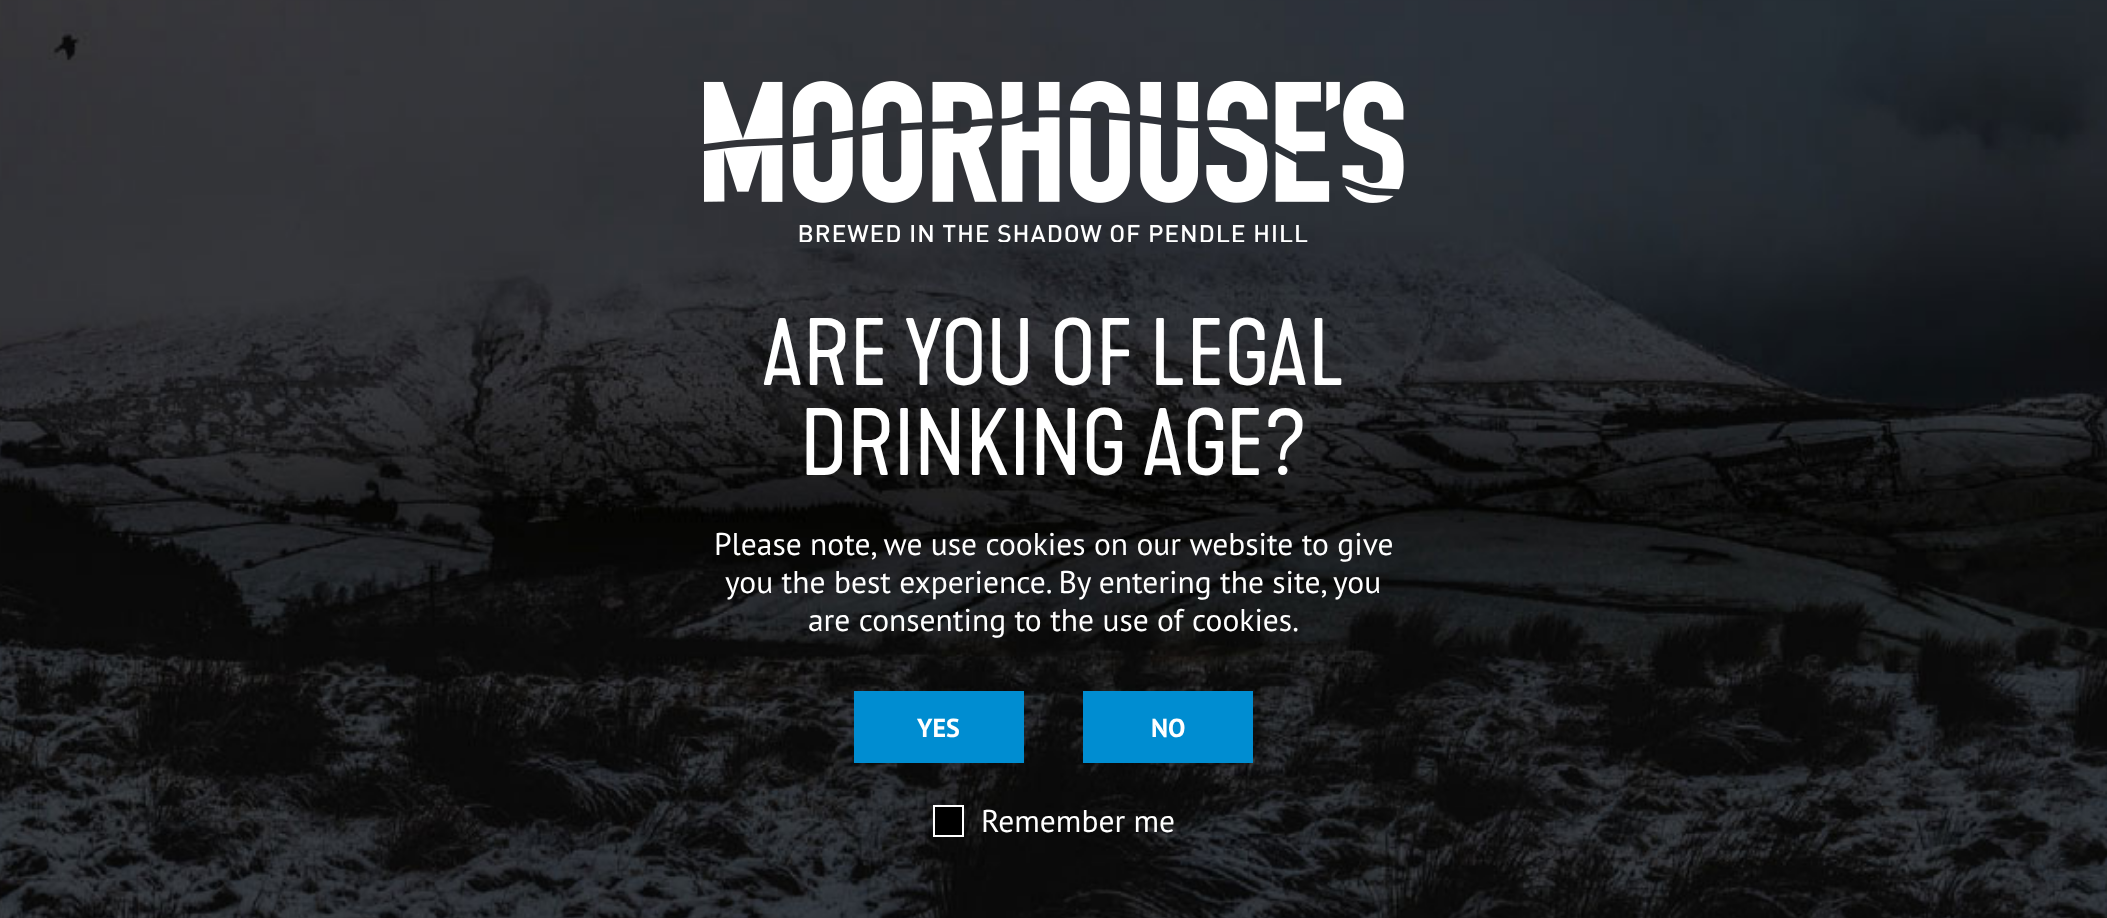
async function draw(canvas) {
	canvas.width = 2107;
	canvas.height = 918;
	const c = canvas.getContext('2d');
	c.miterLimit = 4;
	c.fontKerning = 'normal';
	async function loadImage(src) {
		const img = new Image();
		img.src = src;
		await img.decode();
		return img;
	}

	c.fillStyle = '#fff';
	c.fillRect(0, 0, 2107, 918);
	c.drawImage(await loadImage('img1.png'), 0, 0, 2107, 918);
	c.drawImage(await loadImage('img2.png'), 704, 81, 700, 161);
	c.font = '89.25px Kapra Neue';
	c.fillText('ARE YOU OF LEGAL', 761, 385);
	c.fillText('DRINKING AGE?', 800, 475);
	c.font = '31.5px PT Sans';
	for (const [text, x, y] of [
		['Please note, we use cookies on our website to give', 714, 555],
		['you the best experience. By entering the site, you', 725, 593],
		['are consenting to the use of cookies.', 808, 631],
	]) {
		c.fillText(text, x, y);
	}
	c.fillStyle = '#008dd1';
	c.fillRect(854, 691, 170, 72);
	c.font = 'bold 26px PT Sans';
	c.fillStyle = '#fff';
	c.fillText('YES', 917, 737);
	c.fillStyle = '#008dd1';
	c.fillRect(1083, 691, 170, 72);
	c.fillStyle = '#fff';
	c.fillText('NO', 1151, 737);
	c.fillStyle = '#000';
	c.beginPath();
	c.rect(934, 806, 29, 30);
	c.fill();
	c.strokeStyle = '#fff';
	c.lineWidth = 2;
	c.stroke();
	c.font = '31.5px PT Sans';
	c.fillStyle = '#fff';
	c.fillText('Remember me', 981, 832);
}

draw(document.querySelector('canvas'));
